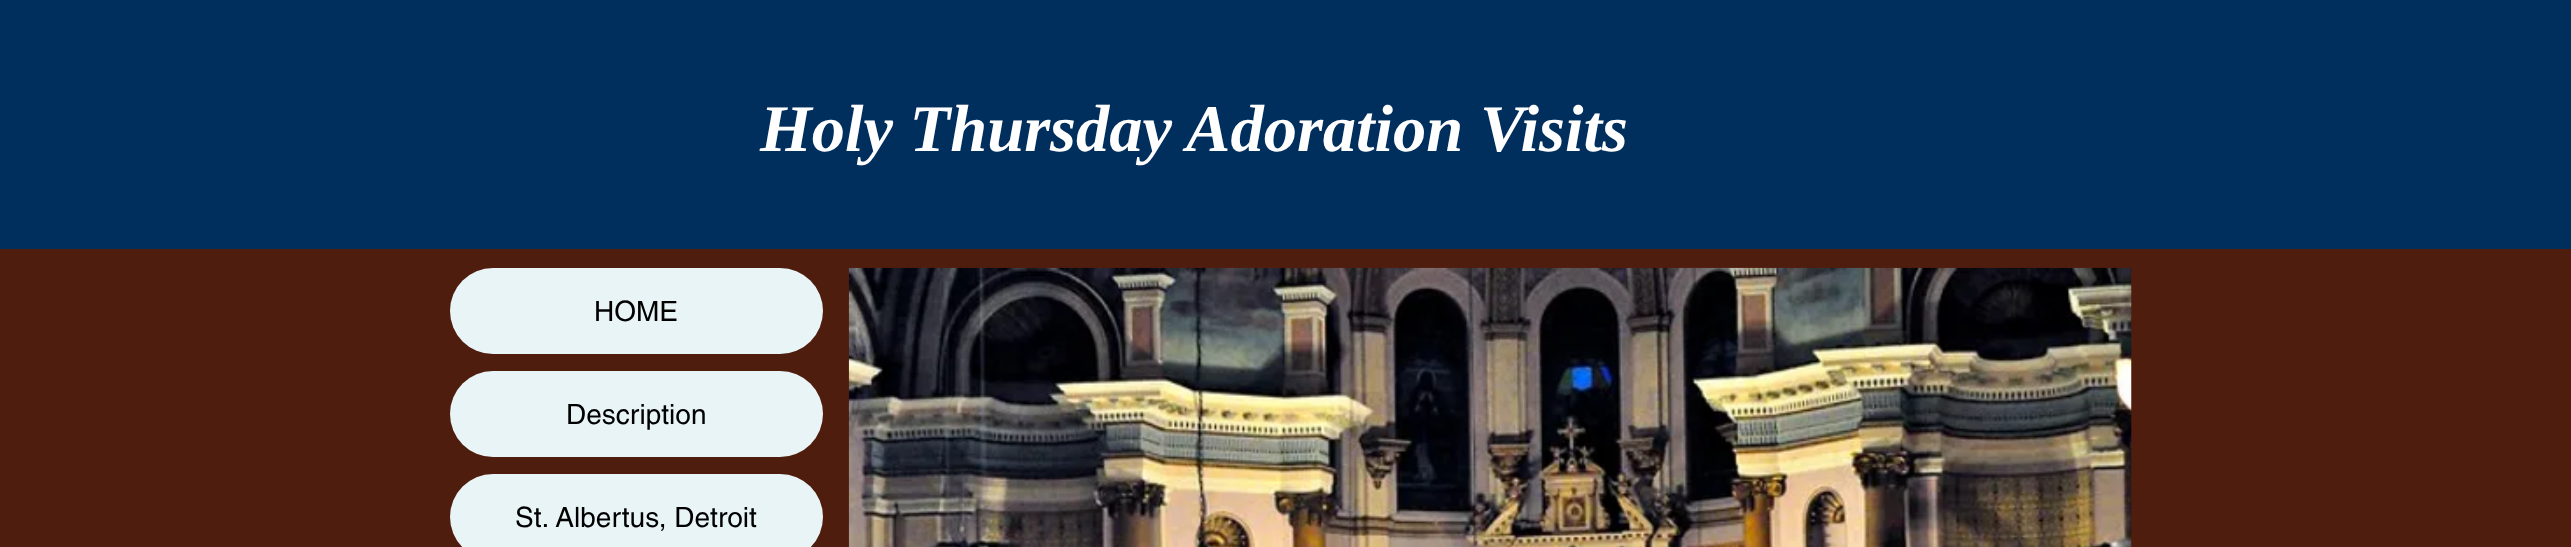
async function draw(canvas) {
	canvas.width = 2571;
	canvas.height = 547;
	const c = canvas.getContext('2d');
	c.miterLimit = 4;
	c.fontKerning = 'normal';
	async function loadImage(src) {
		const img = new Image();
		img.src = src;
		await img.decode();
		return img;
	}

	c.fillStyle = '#4f1d0e';
	c.fillRect(0, 0, 2571, 547);
	c.fillStyle = '#002e5d';
	c.fillRect(0, 0, 2571, 249);
	c.font = 'italic bold 66.5px Liberation Serif';
	c.fillStyle = '#fff';
	c.fillText('Holy Thursday Adoration Visits', 760, 151);
	c.fillStyle = '#e9f4f6';
	c.beginPath();
	c.roundRect(450, 268, 373, 86, 43);
	c.fill();
	c.font = '28px helvetica';
	c.fillStyle = '#000';
	c.fillText('HOME', 594, 321);
	c.fillStyle = '#e9f4f6';
	c.beginPath();
	c.roundRect(450, 371, 373, 86, 43);
	c.fill();
	c.fillStyle = '#000';
	c.fillText('Description', 566, 424);
	c.fillStyle = '#e9f4f6';
	c.beginPath();
	c.roundRect(450, 474, 373, 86, 43);
	c.fill();
	c.fillStyle = '#000';
	c.fillText('St. Albertus, Detroit', 515, 527);
	c.drawImage(await loadImage('img1.png'), 848, 267, 1284, 280);
}

draw(document.querySelector('canvas'));
